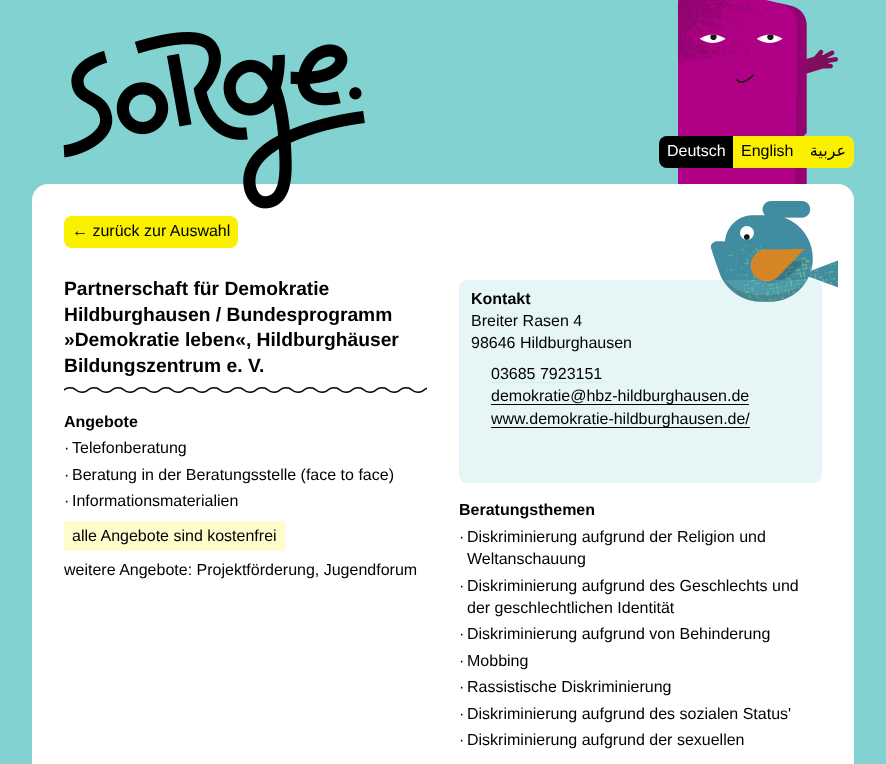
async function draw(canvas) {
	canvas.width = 886;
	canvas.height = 764;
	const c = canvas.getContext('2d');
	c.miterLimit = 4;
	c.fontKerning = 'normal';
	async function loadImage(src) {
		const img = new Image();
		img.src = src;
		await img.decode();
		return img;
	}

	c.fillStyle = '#82d2d2';
	c.fillRect(0, 0, 886, 764);
	c.fillStyle = '#fff';
	c.beginPath();
	c.roundRect(32, 184, 822, 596, 16);
	c.fill();
	c.drawImage(await loadImage('img1.png'), 63, 32, 302, 177);
	c.drawImage(await loadImage('img2.png'), 677, 0, 161, 184);
	c.fillStyle = '#000';
	c.beginPath();
	c.roundRect(659, 136, 74, 32, [8, 0, 0, 8]);
	c.fill();
	c.font = '16px Liberation Sans';
	c.fillStyle = '#fff';
	c.fillText('Deutsch', 667, 156);
	c.fillStyle = '#faf000';
	c.fillRect(733, 136, 69, 32);
	c.fillStyle = '#000';
	c.fillText('English', 741, 156);
	c.fillStyle = '#faf000';
	c.beginPath();
	c.roundRect(802, 136, 52, 32, [0, 8, 8, 0]);
	c.fill();
	c.direction = 'rtl';
	c.font = '16px DejaVu Sans';
	c.fillStyle = '#000';
	c.fillText('عربية', 846, 156);
	c.fillStyle = '#faf000';
	c.beginPath();
	c.roundRect(64, 216, 174, 32, 8);
	c.fill();
	c.direction = 'ltr';
	c.font = '16px Liberation Sans';
	c.fillStyle = '#000';
	c.fillText('← zurück zur Auswahl', 72, 236);
	c.drawImage(await loadImage('img3.png'), 710, 201, 128, 101);
	c.font = 'bold 19.25px Liberation Sans';
	for (const [text, x, y] of [
		['Partnerschaft für Demokratie', 64, 295],
		['Hildburghausen / Bundesprogramm', 64, 321],
		['»Demokratie leben«, Hildburghäuser', 64, 346],
		['Bildungszentrum e. V.', 64, 372],
	]) {
		c.fillText(text, x, y);
	}
	c.drawImage(await loadImage('img4.png'), 64, 387, 363, 6);
	c.font = 'bold 16px Liberation Sans';
	c.fillText('Angebote', 64, 427);
	c.font = '16px Liberation Sans';
	for (const [text, x, y] of [
		['·', 64, 453],
		['Telefonberatung', 72, 453],
		['·', 64, 480],
		['Beratung in der Beratungsstelle (face to face)', 72, 480],
		['·', 64, 506],
		['Informationsmaterialien', 72, 506],
	]) {
		c.fillText(text, x, y);
	}
	c.fillStyle = '#fefccc';
	c.fillRect(64, 521, 221, 30);
	c.fillStyle = '#000';
	c.fillText('alle Angebote sind kostenfrei', 72, 541);
	c.fillText('weitere Angebote: Projektförderung, Jugendforum', 64, 575);
	c.fillStyle = '#82d2d233';
	c.beginPath();
	c.roundRect(459, 280, 363, 203, 8);
	c.fill();
	c.font = 'bold 16px Liberation Sans';
	c.fillStyle = '#000';
	c.fillText('Kontakt', 471, 304);
	c.font = '16px Liberation Sans';
	for (const [text, x, y] of [
		['Breiter Rasen 4', 471, 326],
		['98646 Hildburghausen', 471, 348],
		['03685 7923151', 491, 379],
	]) {
		c.fillText(text, x, y);
	}
	c.fillStyle = '#d2efef';
	c.fillRect(491, 382, 111, 1);
	c.fillStyle = '#000';
	c.fillRect(491, 404, 258, 1);
	c.fillText('demokratie@hbz-hildburghausen.de', 491, 401);
	c.fillRect(491, 427, 259, 1);
	c.fillText('www.demokratie-hildburghausen.de/', 491, 424);
	c.font = 'bold 16px Liberation Sans';
	c.fillText('Beratungsthemen', 459, 515);
	c.font = '16px Liberation Sans';
	for (const [text, x, y] of [
		['·', 459, 542],
		['Diskriminierung aufgrund der Religion und', 467, 542],
		['Weltanschauung', 467, 564],
		['·', 459, 591],
		['Diskriminierung aufgrund des Geschlechts und', 467, 591],
		['der geschlechtlichen Identität', 467, 613],
		['·', 459, 639],
		['Diskriminierung aufgrund von Behinderung', 467, 639],
		['·', 459, 666],
		['Mobbing', 467, 666],
		['·', 459, 692],
		['Rassistische Diskriminierung', 467, 692],
		['·', 459, 719],
		['Diskriminierung aufgrund des sozialen Status\'', 467, 719],
		['·', 459, 745],
		['Diskriminierung aufgrund der sexuellen', 467, 745],
	]) {
		c.fillText(text, x, y);
	}
}

draw(document.querySelector('canvas'));
